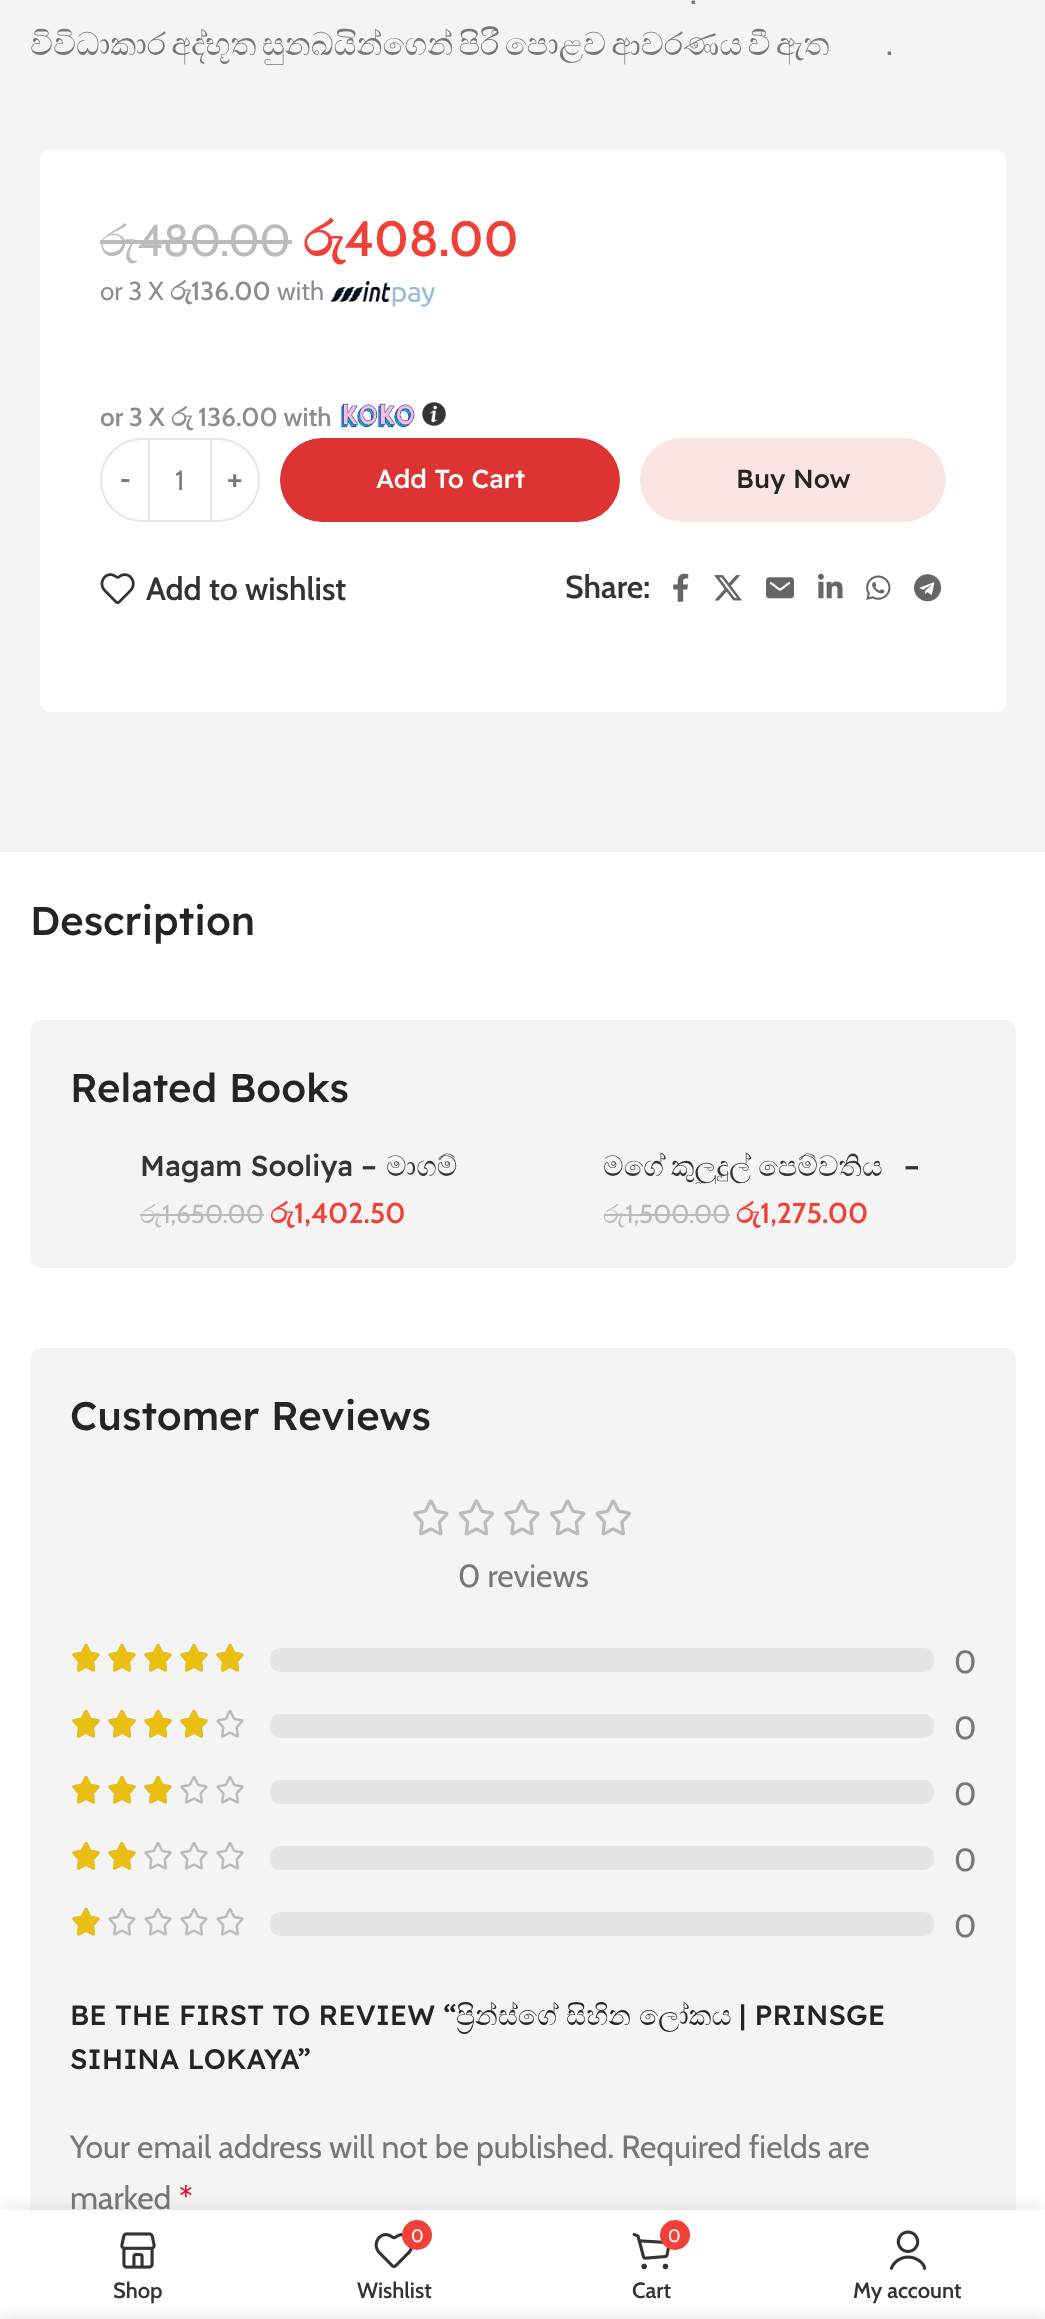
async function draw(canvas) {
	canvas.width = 1045;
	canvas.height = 2319;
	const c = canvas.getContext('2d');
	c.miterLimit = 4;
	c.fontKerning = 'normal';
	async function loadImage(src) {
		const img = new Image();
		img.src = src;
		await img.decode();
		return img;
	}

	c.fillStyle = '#fff';
	c.fillRect(0, 0, 1045, 2319);
	c.fillStyle = '#f4f4f4';
	c.fillRect(0, 0, 1045, 852);
	c.font = '32px Cabin';
	c.fillStyle = '#777';
	c.fillText('.', 690, 4);
	c.wordSpacing = '-2.75px';
	c.font = '32px FreeSerif';
	c.fillText('විවිධාකාර අද්භූත සුනඛයින්ගෙන් පිරී පොළව ආවරණය වී ඇත', 30, 55);
	c.wordSpacing = '0px';
	c.font = '32px Cabin';
	c.fillText('.', 886, 55);
	c.fillStyle = '#fff';
	c.beginPath();
	c.roundRect(40, 150, 966, 562, 10);
	c.fill();
	c.font = '44.5px FreeSerif';
	c.fillStyle = '#bbb';
	c.fillText('රු', 100, 256);
	c.fillRect(100, 240, 38, 4);
	c.fillRect(138, 240, 154, 4);
	c.font = '44.5px Cabin';
	c.fillText('480.00', 137, 256);
	c.font = 'bold 49.5px FreeSerif';
	c.fillStyle = '#ef4137';
	c.fillText('රු', 303, 256);
	c.font = '600 49.5px Cabin';
	c.fillText('408.00', 344, 256);
	c.font = '26px Cabin';
	c.fillStyle = '#8e8e8e';
	c.fillText('or 3 X', 100, 300);
	c.font = 'bold 26px FreeSerif';
	c.fillText('රු', 170, 300);
	c.font = '600 26px Cabin';
	c.fillText('136.00', 191, 300);
	c.font = '26px Cabin';
	c.fillText('with', 277, 300);
	c.drawImage(await loadImage('img1.png'), 330, 280, 106, 28);
	c.font = '600 26px Cabin';
	c.fillText('or 3 X', 100, 426);
	c.font = 'bold 26px FreeSerif';
	c.fillText('රු', 171, 426);
	c.font = '600 26px Cabin';
	c.fillText('136.00 with', 198, 426);
	c.drawImage(await loadImage('img2.png'), 341, 403, 74, 25);
	c.drawImage(await loadImage('img3.png'), 422, 402, 24, 24);
	c.beginPath();
	c.roundRect(101, 439, 48, 82, [41, 0, 0, 41]);
	c.strokeStyle = '#e6e6e6';
	c.lineWidth = 2;
	c.stroke();
	c.font = '500 26px Readex Pro';
	c.fillStyle = '#777';
	c.fillText('-', 120, 488);
	c.fillStyle = '#e6e6e6';
	c.fillRect(150, 438, 60, 2);
	c.fillRect(150, 520, 60, 2);
	c.font = '28px Cabin';
	c.fillStyle = '#777';
	c.fillText('1', 175, 490);
	c.beginPath();
	c.roundRect(211, 439, 48, 82, [0, 41, 41, 0]);
	c.stroke();
	c.font = '500 26px Readex Pro';
	c.fillText('+', 227, 488);
	c.fillStyle = '#d33';
	c.beginPath();
	c.roundRect(280, 438, 340, 84, 42);
	c.fill();
	c.fillStyle = '#fff';
	c.fillText('Add To Cart', 376, 488);
	c.fillStyle = '#fbe4e4';
	c.beginPath();
	c.roundRect(640, 438, 306, 84, 42);
	c.fill();
	c.fillStyle = '#242424';
	c.fillText('Buy Now', 736, 488);
	c.drawImage(await loadImage('img4.png'), 100, 573, 35, 31);
	c.font = '600 32px Cabin';
	c.fillStyle = '#333';
	c.fillText('Add to wishlist', 146, 600);
	c.fillText('Share:', 565, 598);
	c.drawImage(await loadImage('img5.png'), 673, 573, 16, 29);
	c.drawImage(await loadImage('img6.png'), 714, 575, 28, 26);
	c.drawImage(await loadImage('img7.png'), 766, 577, 28, 22);
	c.drawImage(await loadImage('img8.png'), 818, 573, 25, 26);
	c.drawImage(await loadImage('img9.png'), 866, 575, 25, 25);
	c.drawImage(await loadImage('img10.png'), 914, 574, 28, 28);
	c.font = '500 40px Readex Pro';
	c.fillStyle = '#242424';
	c.fillText('Description', 30, 935);
	c.fillStyle = '#f4f4f4';
	c.beginPath();
	c.roundRect(30, 1020, 986, 248, 10);
	c.fill();
	c.fillStyle = '#242424';
	c.fillText('Related Books', 70, 1102);
	c.font = '500 28.75px Readex Pro';
	c.fillStyle = '#333';
	c.fillText('Magam Sooliya –', 140, 1176);
	c.font = '28.75px FreeSerif';
	c.fillText('මාගම්', 386, 1176);
	c.font = '26px FreeSerif';
	c.fillStyle = '#bbb';
	c.fillText('රු', 140, 1223);
	c.font = '26px Cabin';
	c.fillText('1,650.00', 162, 1223);
	c.fillRect(140, 1214, 22, 2);
	c.fillRect(162, 1214, 102, 2);
	c.font = 'bold 28.75px FreeSerif';
	c.fillStyle = '#ef4137';
	c.fillText('රු', 270, 1223);
	c.font = '600 28.75px Cabin';
	c.fillText('1,402.50', 294, 1223);
	c.save();
	c.beginPath();
	c.rect(604, 1150, 372, 34);
	c.clip();
	c.font = '28.75px FreeSerif';
	c.fillStyle = '#333';
	c.fillText('මගේ කුලුදුල් පෙම්වතිය', 603, 1176);
	c.restore();
	c.font = '500 28.75px Readex Pro';
	c.fillStyle = '#333';
	c.fillText('–', 904, 1176);
	c.font = '26px FreeSerif';
	c.fillStyle = '#bbb';
	c.fillText('රු', 603, 1223);
	c.fillRect(604, 1214, 20, 2);
	c.font = '26px Cabin';
	c.fillText('1,500.00', 625, 1223);
	c.fillRect(624, 1214, 106, 2);
	c.font = 'bold 28.75px FreeSerif';
	c.fillStyle = '#ef4137';
	c.fillText('රු', 736, 1223);
	c.font = '600 28.75px Cabin';
	c.fillText('1,275.00', 760, 1223);
	c.fillStyle = '#f4f4f4';
	c.beginPath();
	c.roundRect(30, 1348, 986, 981, 10);
	c.fill();
	c.font = '500 40px Readex Pro';
	c.fillStyle = '#242424';
	c.fillText('Customer Reviews', 70, 1430);
	c.drawImage(await loadImage('img11.png'), 413, 1499, 218, 37);
	c.font = '32px Cabin';
	c.fillStyle = '#777';
	c.fillText('0 reviews', 458, 1587);
	c.drawImage(await loadImage('img13.png'), 72, 1644, 172, 28);
	c.drawImage(await loadImage('img12.png'), 72, 1643, 172, 29);
	c.fillStyle = '#e5e5e5';
	c.beginPath();
	c.roundRect(270, 1648, 664, 24, 10);
	c.fill();
	c.fillStyle = '#777';
	c.fillText('0', 954, 1673);
	c.drawImage(await loadImage('img13.png'), 72, 1710, 172, 28);
	c.drawImage(await loadImage('img14.png'), 72, 1709, 136, 29);
	c.fillStyle = '#e5e5e5';
	c.beginPath();
	c.roundRect(270, 1714, 664, 24, 10);
	c.fill();
	c.fillStyle = '#777';
	c.fillText('0', 954, 1739);
	c.drawImage(await loadImage('img13.png'), 72, 1776, 172, 28);
	c.drawImage(await loadImage('img15.png'), 72, 1775, 100, 29);
	c.fillStyle = '#e5e5e5';
	c.beginPath();
	c.roundRect(270, 1780, 664, 24, 10);
	c.fill();
	c.fillStyle = '#777';
	c.fillText('0', 954, 1805);
	c.drawImage(await loadImage('img13.png'), 72, 1842, 172, 28);
	c.drawImage(await loadImage('img16.png'), 72, 1841, 64, 29);
	c.fillStyle = '#e5e5e5';
	c.beginPath();
	c.roundRect(270, 1846, 664, 24, 10);
	c.fill();
	c.fillStyle = '#777';
	c.fillText('0', 954, 1871);
	c.drawImage(await loadImage('img13.png'), 72, 1908, 172, 28);
	c.drawImage(await loadImage('img17.png'), 72, 1907, 28, 29);
	c.fillStyle = '#e5e5e5';
	c.beginPath();
	c.roundRect(270, 1912, 664, 24, 10);
	c.fill();
	c.fillStyle = '#777';
	c.fillText('0', 954, 1937);
	c.font = '500 28px Readex Pro';
	c.fillStyle = '#242424';
	c.fillText('BE THE FIRST TO REVIEW “', 70, 2025);
	c.font = '28px FreeSerif';
	for (const [text, x, y] of [
		['ප්‍රින්ස්ගේ', 456, 2025],
		['සිහින', 566, 2025],
		['ලෝකය', 639, 2025],
	]) {
		c.fillText(text, x, y);
	}
	c.font = '500 28px Readex Pro';
	c.fillText('| PRINSGE', 739, 2025);
	c.fillText('SIHINA LOKAYA”', 70, 2069);
	c.font = '32px Cabin';
	c.fillStyle = '#777';
	c.fillText('Your email address will not be published. Required fields are', 70, 2158);
	c.fillText('marked', 70, 2209);
	c.fillStyle = '#e01020';
	c.fillText('*', 179, 2209);
	c.fillStyle = '#0000001f';
	c.filter = 'blur(9px)';
	c.beginPath();
	c.rect(0, 2210, 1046, 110);
	c.fill();
	c.filter = 'none';
	c.fillStyle = '#fff';
	c.fillRect(0, 2210, 1045, 109);
	c.drawImage(await loadImage('img18.png'), 120, 2232, 36, 37);
	c.font = '600 22px Cabin';
	c.fillStyle = '#333';
	c.fillText('Shop', 113, 2298);
	c.drawImage(await loadImage('img19.png'), 374, 2233, 39, 35);
	c.fillStyle = '#ef4137';
	c.beginPath();
	c.arc(417, 2235, 15, 0, 2 * Math.PI);
	c.fill();
	c.font = '18px Cabin';
	c.fillStyle = '#fff';
	c.fillText('0', 411, 2242);
	c.font = '600 22px Cabin';
	c.fillStyle = '#333';
	c.fillText('Wishlist', 357, 2298);
	c.drawImage(await loadImage('img20.png'), 632, 2233, 38, 37);
	c.fillStyle = '#ef4137';
	c.beginPath();
	c.arc(675, 2235, 15, 0, 2 * Math.PI);
	c.fill();
	c.font = '18px Cabin';
	c.fillStyle = '#fff';
	c.fillText('0', 668, 2242);
	c.font = '600 22px Cabin';
	c.fillStyle = '#333';
	c.fillText('Cart', 632, 2298);
	c.drawImage(await loadImage('img21.png'), 889, 2230, 38, 40);
	c.fillText('My account', 853, 2298);
	c.fillStyle = '#00000024';
	c.filter = 'blur(9px)';
	c.beginPath();
	c.rect(0, 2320, 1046, 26);
	c.fill();
	c.filter = 'none';
}

draw(document.querySelector('canvas'));
